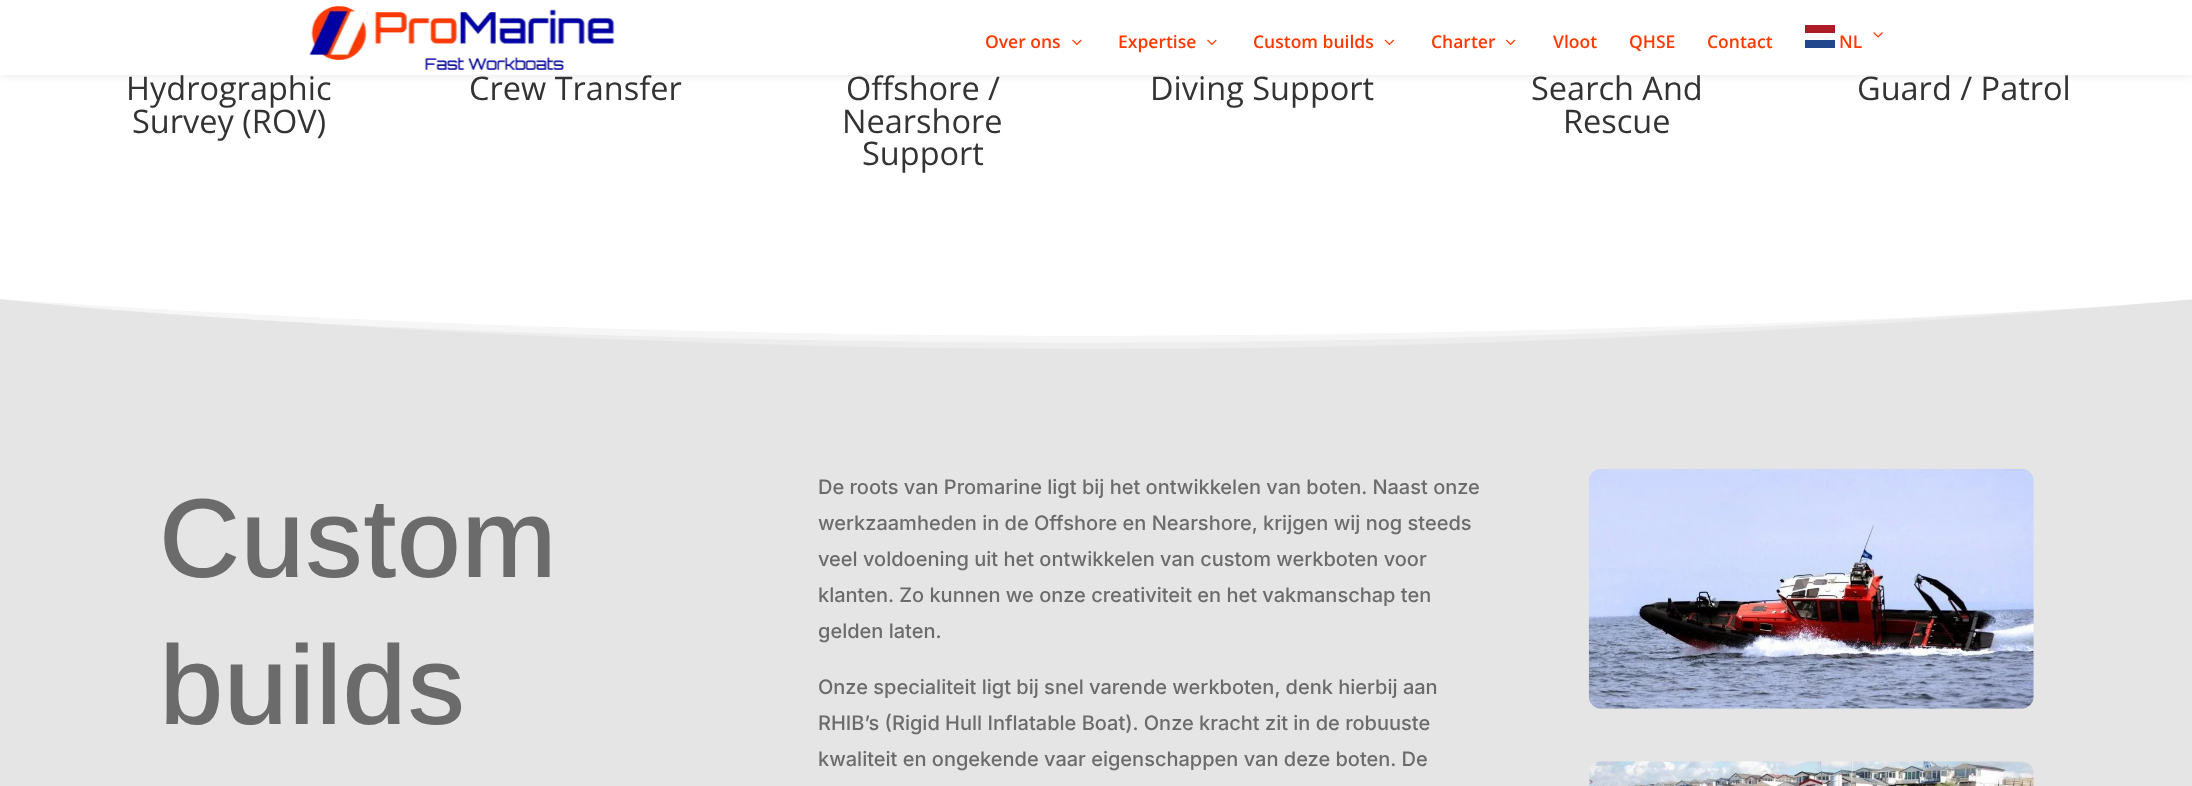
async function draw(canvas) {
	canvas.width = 2192;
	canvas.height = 786;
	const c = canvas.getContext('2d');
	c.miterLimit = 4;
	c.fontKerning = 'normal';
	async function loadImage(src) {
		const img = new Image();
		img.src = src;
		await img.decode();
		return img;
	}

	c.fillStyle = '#fff';
	c.fillRect(0, 0, 2192, 786);
	c.fillStyle = '#0000001a';
	c.filter = 'blur(4.5px)';
	c.beginPath();
	c.rect(0, 0, 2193, 75);
	c.fill();
	c.filter = 'none';
	c.fillStyle = '#fff';
	c.fillRect(0, 0, 2192, 75);
	c.drawImage(await loadImage('img1.png'), 309, 6, 306, 64);
	c.font = '600 17.5px Open Sans';
	c.fillStyle = '#ff3900';
	c.fillText('Over ons', 985, 48);
	c.drawImage(await loadImage('img2.png'), 1072, 39, 10, 6);
	c.fillText('Expertise', 1118, 48);
	c.drawImage(await loadImage('img2.png'), 1207, 39, 10, 6);
	c.fillText('Custom builds', 1253, 48);
	c.drawImage(await loadImage('img3.png'), 1384, 39, 10, 6);
	c.fillText('Charter', 1431, 48);
	c.drawImage(await loadImage('img4.png'), 1506, 39, 10, 6);
	for (const [text, x, y] of [
		['Vloot', 1553, 48],
		['QHSE', 1629, 48],
		['Contact', 1707, 48],
	]) {
		c.fillText(text, x, y);
	}
	c.fillStyle = '#ae1c28';
	c.fillRect(1805, 25, 30, 8);
	c.fillStyle = '#21468b';
	c.fillRect(1805, 40, 30, 8);
	c.fillStyle = '#ff3900';
	c.fillText('NL', 1839, 48);
	c.drawImage(await loadImage('img5.png'), 1873, 32, 10, 6);
	c.font = '32.5px Open Sans';
	c.fillStyle = '#333';
	for (const [text, x, y] of [
		['Hydrographic', 126, 100],
		['Survey (ROV)', 132, 133],
		['Crew Transfer', 469, 100],
		['Offshore /', 846, 100],
		['Nearshore', 842, 133],
		['Support', 862, 165],
		['Diving Support', 1150, 100],
		['Search And', 1531, 100],
		['Rescue', 1563, 133],
		['Guard / Patrol', 1857, 100],
	]) {
		c.fillText(text, x, y);
	}
	c.fillStyle = '#e5e5e5';
	c.fillRect(0, 299, 2192, 487);
	c.fillStyle = '#ededed';
	c.beginPath();
	c.moveTo(0, 299);
	c.bezierCurveTo(32, 302, 510, 349, 1095, 349);
	c.bezierCurveTo(1701, 349, 2192, 299, 2192, 299);
	c.closePath();
	c.fill();
	c.fillStyle = '#ffffff80';
	c.beginPath();
	c.moveTo(0, 299);
	c.bezierCurveTo(24, 302, 302, 335, 951, 342);
	c.bezierCurveTo(1631, 349, 2192, 299, 2192, 299);
	c.closePath();
	c.fill();
	c.fillStyle = '#fff';
	c.beginPath();
	c.moveTo(1244, 335);
	c.bezierCurveTo(1929, 327, 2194, 299, 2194, 299);
	c.lineTo(2, 299);
	c.bezierCurveTo(2, 299, 559, 342, 1244, 335);
	c.closePath();
	c.fill();
	c.font = '500 112.5px Arimo';
	c.fillStyle = '#6b6b6b';
	c.fillText('Custom', 159, 577);
	c.fillText('builds', 159, 724);
	c.font = '500 20px Inter';
	for (const [text, x, y] of [
		['De roots van Promarine ligt bij het ontwikkelen van boten. Naast onze', 818, 494],
		['werkzaamheden in de Offshore en Nearshore, krijgen wij nog steeds', 818, 530],
		['veel voldoening uit het ontwikkelen van custom werkboten voor', 818, 566],
		['klanten. Zo kunnen we onze creativiteit en het vakmanschap ten', 818, 602],
		['gelden laten.', 818, 638],
		['Onze specialiteit ligt bij snel varende werkboten, denk hierbij aan', 818, 694],
		['RHIB’s (Rigid Hull Inflatable Boat). Onze kracht zit in de robuuste', 818, 730],
		['kwaliteit en ongekende vaar eigenschappen van deze boten. De', 818, 766],
	]) {
		c.fillText(text, x, y);
	}
	c.drawImage(await loadImage('img6.png'), 1588, 469, 446, 240);
	c.drawImage(await loadImage('img7.png'), 1589, 761, 445, 25);
}

draw(document.querySelector('canvas'));
